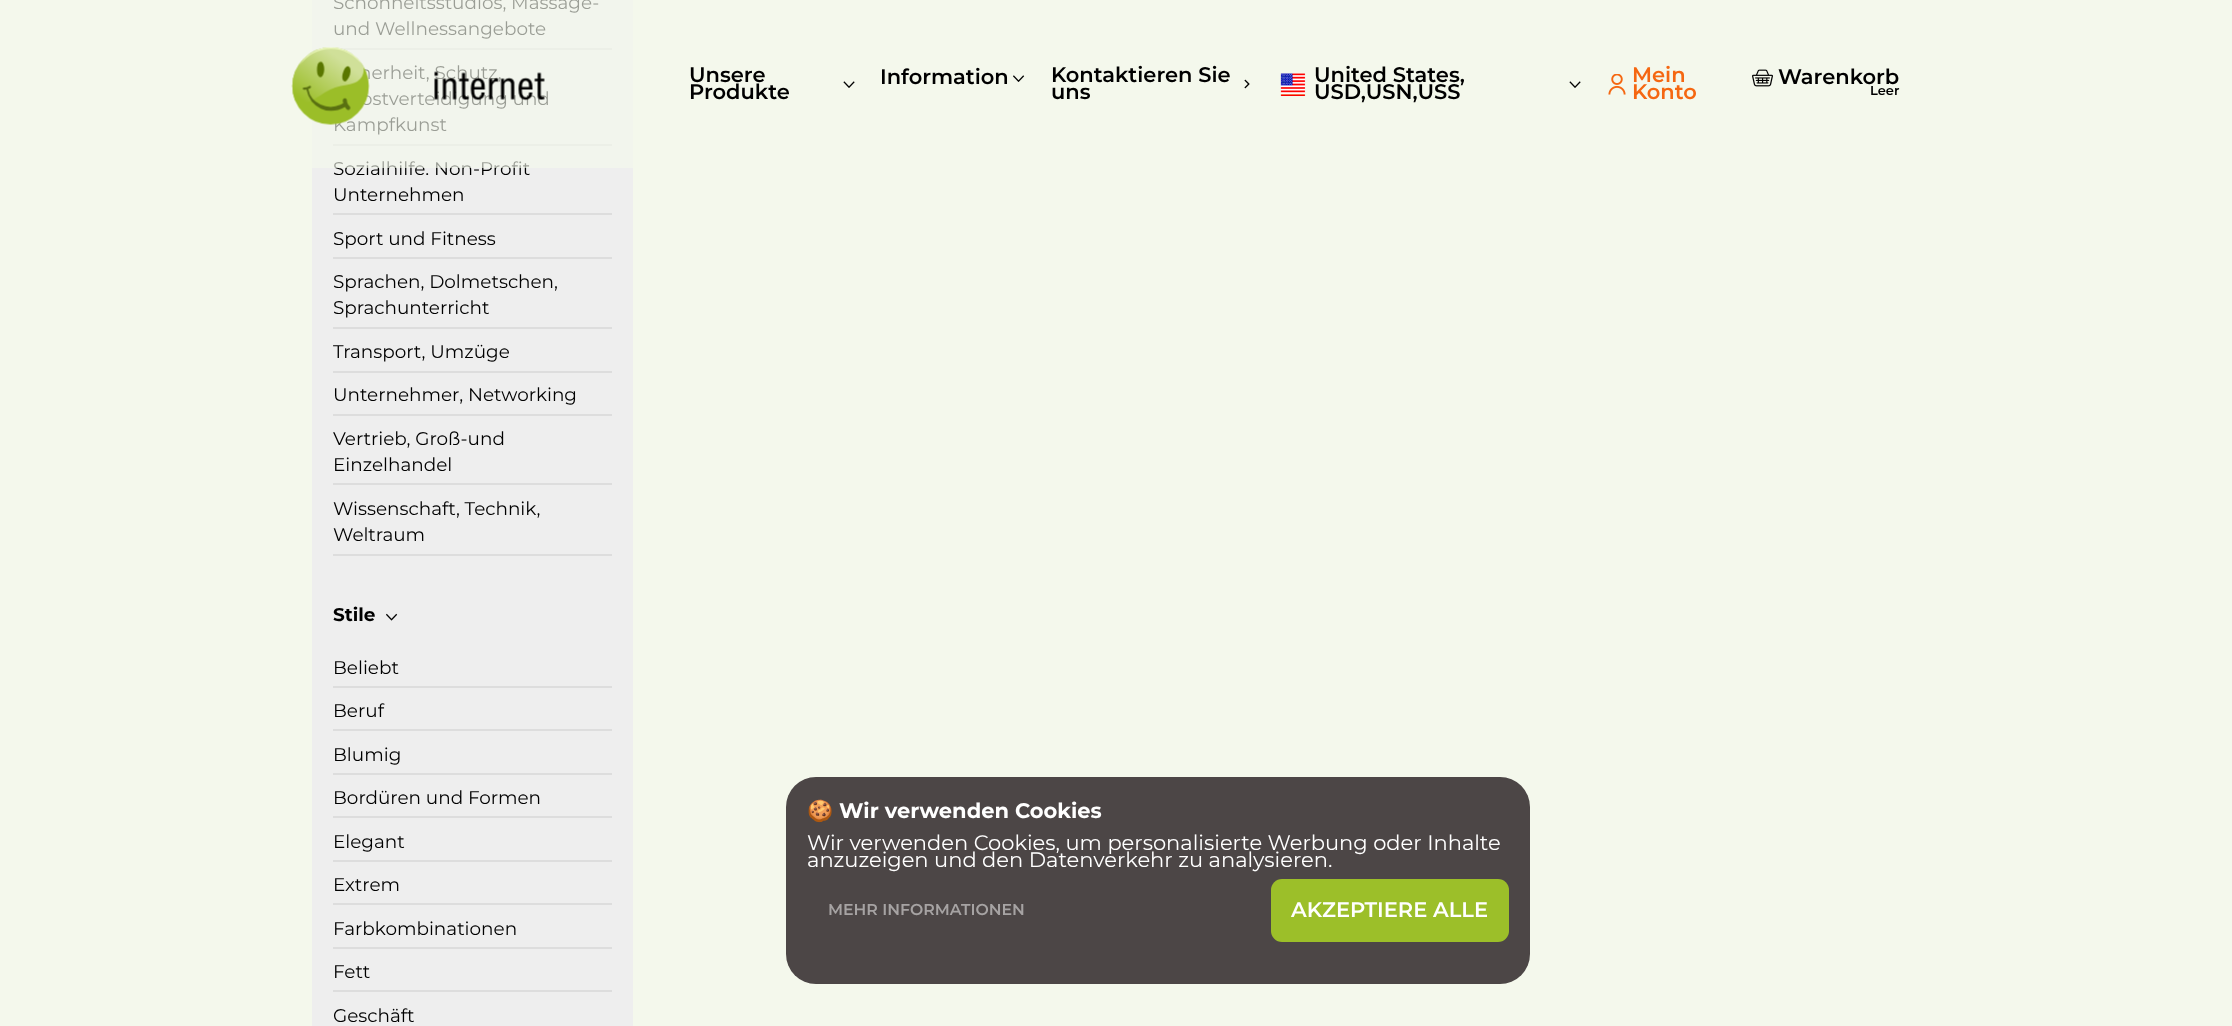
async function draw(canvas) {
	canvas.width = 2232;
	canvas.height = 1026;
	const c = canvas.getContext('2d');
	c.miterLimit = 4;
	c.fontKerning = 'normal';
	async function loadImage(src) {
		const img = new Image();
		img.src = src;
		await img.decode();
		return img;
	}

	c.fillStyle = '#f4f8ec';
	c.fillRect(0, 0, 2232, 1026);
	c.fillStyle = '#eee';
	c.fillRect(312, 0, 321, 1026);
	c.fillStyle = '#ddd';
	c.fillRect(333, 48, 279, 2);
	c.font = '18.4px Montserrat';
	c.fillStyle = '#000';
	c.fillText('Schönheitsstudios, Massage-', 333, 9);
	c.fillText('und Wellnessangebote', 333, 35);
	c.fillStyle = '#ddd';
	c.fillRect(333, 144, 279, 2);
	c.fillStyle = '#000';
	for (const [text, x, y] of [
		['herheit, Schutz,', 359, 79],
		['bstverteidigung und', 360, 105],
		['Kampfkunst', 333, 131],
	]) {
		c.fillText(text, x, y);
	}
	c.fillStyle = '#ddd';
	c.fillRect(333, 213, 279, 2);
	c.fillStyle = '#000';
	c.fillText('Sozialhilfe. Non-Profit', 333, 175);
	c.fillText('Unternehmen', 333, 201);
	c.fillStyle = '#ddd';
	c.fillRect(333, 257, 279, 2);
	c.fillStyle = '#000';
	c.fillText('Sport und Fitness', 333, 245);
	c.fillStyle = '#ddd';
	c.fillRect(333, 327, 279, 2);
	c.fillStyle = '#000';
	c.fillText('Sprachen, Dolmetschen,', 333, 288);
	c.fillText('Sprachunterricht', 333, 314);
	c.fillStyle = '#ddd';
	c.fillRect(333, 371, 279, 2);
	c.fillStyle = '#000';
	c.fillText('Transport, Umzüge', 333, 358);
	c.fillStyle = '#ddd';
	c.fillRect(333, 414, 279, 2);
	c.fillStyle = '#000';
	c.fillText('Unternehmer, Networking', 333, 401);
	c.fillStyle = '#ddd';
	c.fillRect(333, 483, 279, 2);
	c.fillStyle = '#000';
	c.fillText('Vertrieb, Groß-und', 333, 445);
	c.fillText('Einzelhandel', 333, 471);
	c.fillStyle = '#ddd';
	c.fillRect(333, 554, 279, 2);
	c.fillStyle = '#000';
	c.fillText('Wissenschaft, Technik,', 333, 515);
	c.fillText('Weltraum', 333, 541);
	c.font = 'bold 18.4px Montserrat';
	c.fillText('Stile', 333, 621);
	c.drawImage(await loadImage('img1.png'), 386, 613, 12, 8);
	c.fillStyle = '#ddd';
	c.fillRect(333, 686, 279, 2);
	c.font = '18.4px Montserrat';
	c.fillStyle = '#000';
	c.fillText('Beliebt', 333, 674);
	c.fillStyle = '#ddd';
	c.fillRect(333, 729, 279, 2);
	c.fillStyle = '#000';
	c.fillText('Beruf', 333, 717);
	c.fillStyle = '#ddd';
	c.fillRect(333, 773, 279, 2);
	c.fillStyle = '#000';
	c.fillText('Blumig', 333, 761);
	c.fillStyle = '#ddd';
	c.fillRect(333, 816, 279, 2);
	c.fillStyle = '#000';
	c.fillText('Bordüren und Formen', 333, 804);
	c.fillStyle = '#ddd';
	c.fillRect(333, 860, 279, 2);
	c.fillStyle = '#000';
	c.fillText('Elegant', 333, 848);
	c.fillStyle = '#ddd';
	c.fillRect(333, 903, 279, 2);
	c.fillStyle = '#000';
	c.fillText('Extrem', 333, 891);
	c.fillStyle = '#ddd';
	c.fillRect(333, 947, 279, 2);
	c.fillStyle = '#000';
	c.fillText('Farbkombinationen', 333, 935);
	c.fillStyle = '#ddd';
	c.fillRect(333, 990, 279, 2);
	c.fillStyle = '#000';
	c.fillText('Fett', 333, 978);
	c.fillText('Geschäft', 333, 1022);
	c.fillStyle = '#f4f8eca1';
	c.fillRect(312, 0, 321, 168);
	c.drawImage(await loadImage('img2.png'), 291, 47, 254, 78);
	c.font = '600 21px Montserrat';
	c.fillStyle = '#000';
	c.fillText('Unsere', 689, 82);
	c.fillText('Produkte', 689, 99);
	c.drawImage(await loadImage('img3.png'), 843, 81, 12, 7);
	c.fillText('Information', 880, 84);
	c.drawImage(await loadImage('img4.png'), 1013, 75, 12, 7);
	c.fillText('Kontaktieren Sie', 1051, 82);
	c.fillText('uns', 1051, 99);
	c.drawImage(await loadImage('img5.png'), 1244, 79, 6, 10);
	c.drawImage(await loadImage('img6.png'), 1280, 73, 26, 23);
	c.fillText('United States,', 1314, 82);
	c.fillText('USD,USN,USS', 1314, 99);
	c.drawImage(await loadImage('img3.png'), 1569, 81, 12, 7);
	c.drawImage(await loadImage('img7.png'), 1608, 74, 18, 21);
	c.fillStyle = '#f56711';
	c.fillText('Mein', 1632, 82);
	c.fillText('Konto', 1632, 99);
	c.drawImage(await loadImage('img8.png'), 1752, 69, 21, 18);
	c.fillStyle = '#000';
	c.fillText('Warenkorb', 1778, 84);
	c.font = '600 13px Montserrat';
	c.fillText('Leer', 1870, 95);
	c.fillStyle = '#4c4646';
	c.beginPath();
	c.roundRect(786, 777, 744, 207, 30);
	c.fill();
	c.font = 'bold 21px Noto Color Emoji';
	c.fillStyle = '#fff';
	c.fillText('🍪', 807, 818);
	c.font = 'bold 21px Montserrat';
	c.fillText('Wir verwenden Cookies', 839, 818);
	c.font = '21px Montserrat';
	c.fillText('Wir verwenden Cookies, um personalisierte Werbung oder Inhalte', 807, 850);
	c.fillText('anzuzeigen und den Datenverkehr zu analysieren.', 807, 867);
	c.font = '600 15.75px Montserrat';
	c.fillStyle = '#a6a3a3';
	c.fillText('MEHR INFORMATIONEN', 828, 915);
	c.fillStyle = '#9cbf29';
	c.beginPath();
	c.roundRect(1271, 879, 238, 63, 11);
	c.fill();
	c.font = '600 21px Montserrat';
	c.fillStyle = '#fff';
	c.fillText('AKZEPTIERE ALLE', 1291, 917);
}

draw(document.querySelector('canvas'));
